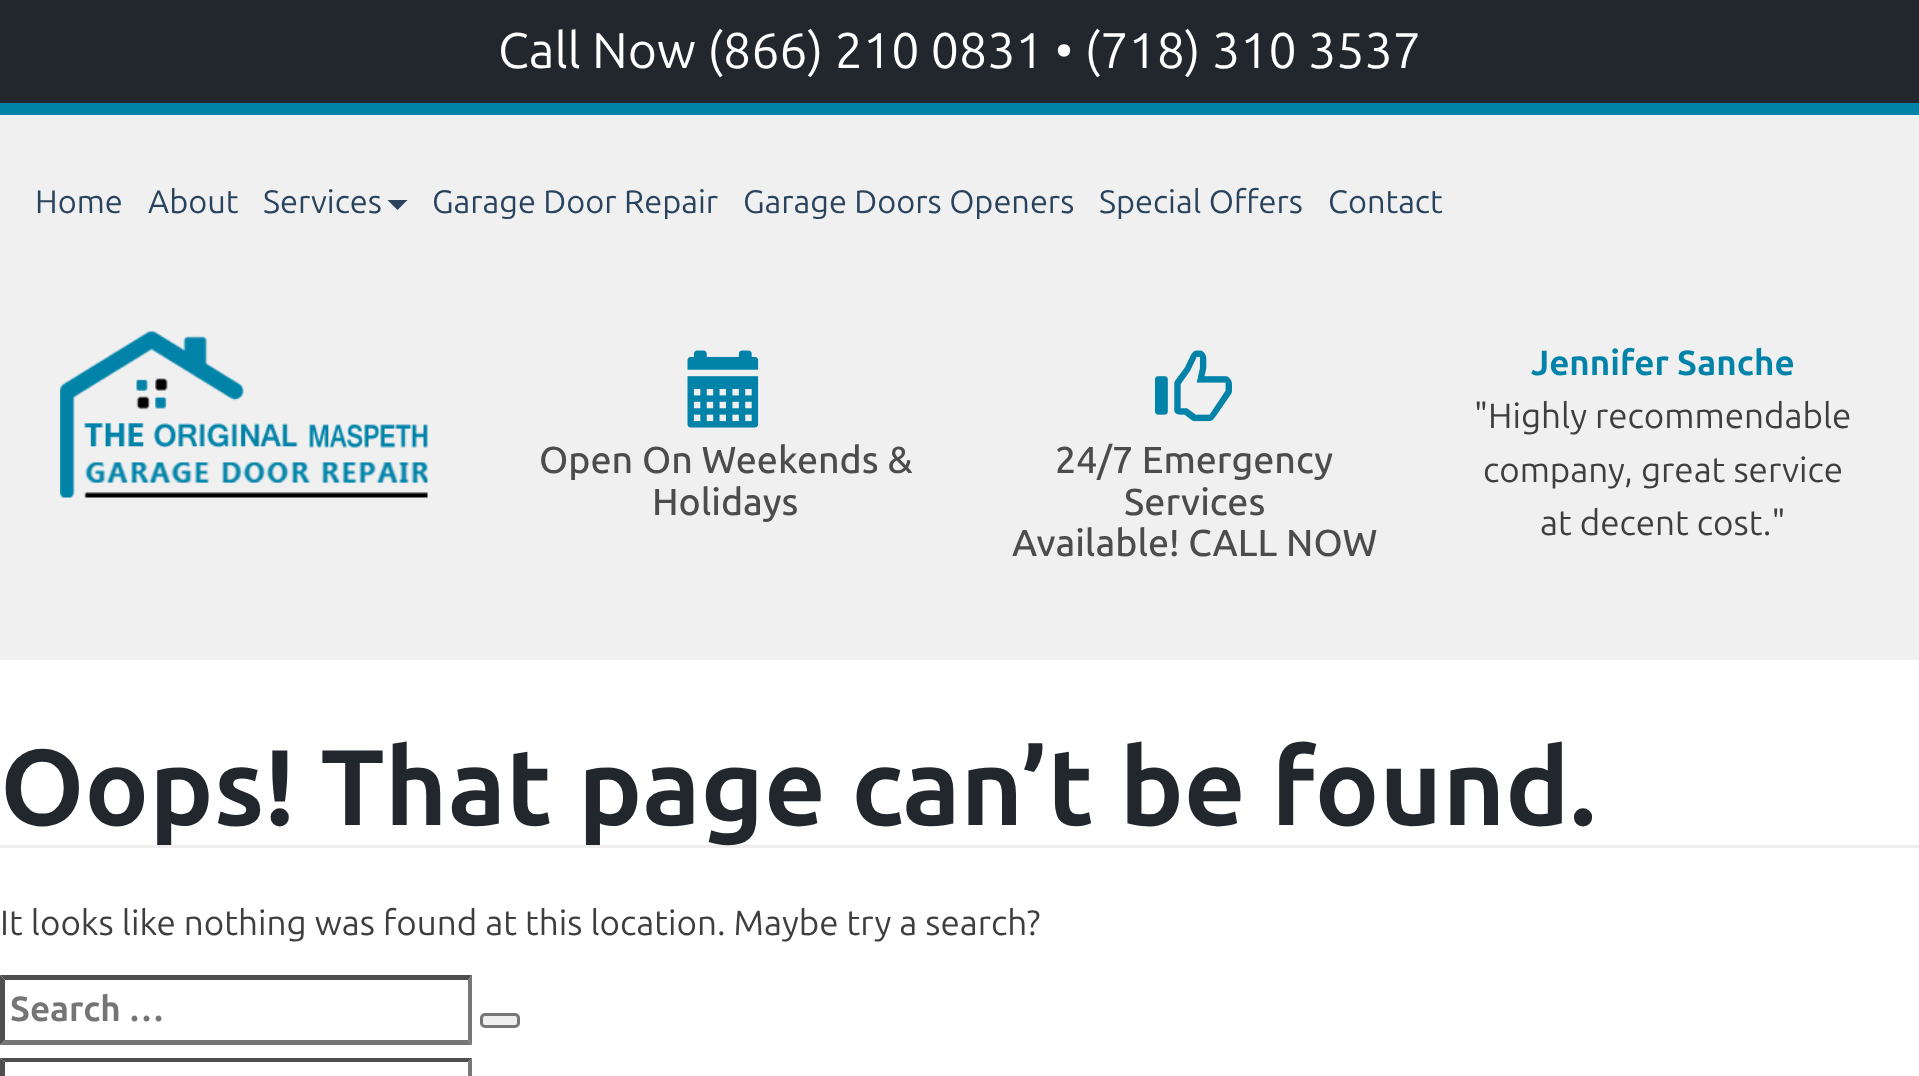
async function draw(canvas) {
	canvas.width = 1919;
	canvas.height = 1076;
	const c = canvas.getContext('2d');
	c.miterLimit = 4;
	c.fontKerning = 'normal';
	async function loadImage(src) {
		const img = new Image();
		img.src = src;
		await img.decode();
		return img;
	}

	c.fillStyle = '#fff';
	c.fillRect(0, 0, 1919, 1076);
	c.fillStyle = '#22262d';
	c.fillRect(0, 0, 1919, 103);
	c.fillStyle = '#0183a9';
	c.fillRect(0, 103, 1919, 12);
	c.font = '50px Ubuntu';
	c.fillStyle = '#fff';
	c.fillText('Call Now (866) 210 0831 • (718) 310 3537', 498, 68);
	c.fillStyle = '#f0f0f0';
	c.fillRect(0, 115, 1919, 545);
	c.font = '32.5px Ubuntu';
	c.fillStyle = '#29435f';
	for (const [text, x, y] of [
		['Home', 35, 213],
		['About', 148, 213],
		['Services', 263, 213],
	]) {
		c.fillText(text, x, y);
	}
	c.beginPath();
	c.moveTo(387.5, 200);
	c.lineTo(407.5, 200);
	c.lineTo(397.5, 210);
	c.closePath();
	c.fill();
	for (const [text, x, y] of [
		['Garage Door Repair', 432, 213],
		['Garage Doors Openers', 743, 213],
		['Special Offers', 1099, 213],
		['Contact', 1328, 213],
	]) {
		c.fillText(text, x, y);
	}
	c.drawImage(await loadImage('img1.png'), 60, 331, 368, 167);
	c.drawImage(await loadImage('img2.png'), 687, 350, 72, 78);
	c.font = '500 37.5px Ubuntu';
	c.fillStyle = '#4c4c4c';
	c.fillText('Open On Weekends &', 539, 473);
	c.fillText('Holidays', 652, 515);
	c.drawImage(await loadImage('img3.png'), 1155, 350, 77, 72);
	for (const [text, x, y] of [
		['24/7 Emergency', 1055, 473],
		['Services', 1124, 515],
		['Available! CALL NOW', 1012, 556],
	]) {
		c.fillText(text, x, y);
	}
	c.font = 'bold 35px Ubuntu';
	c.fillStyle = '#0183a9';
	c.fillText('Jennifer Sanche', 1531, 375);
	c.font = '35px Ubuntu';
	c.fillStyle = '#3e3e3e';
	for (const [text, x, y] of [
		['"Highly recommendable', 1474, 428],
		['company, great service', 1483, 482],
		['at decent cost."', 1540, 535],
	]) {
		c.fillText(text, x, y);
	}
	c.fillStyle = '#eee';
	c.fillRect(0, 845, 1919, 3);
	c.font = 'bold 107.5px Ubuntu';
	c.fillStyle = '#22262d';
	c.fillText('Oops! That page can’t be found.', 0, 825);
	c.font = '35px Ubuntu';
	c.fillStyle = '#3e3e3e';
	c.fillText('It looks like nothing was found at this location. Maybe try a search?', 0, 935);
	c.fillStyle = '#4f4f4f';
	c.beginPath();
	c.moveTo(0, 975);
	c.lineTo(472, 975);
	c.lineTo(468, 980);
	c.lineTo(5, 980);
	c.closePath();
	c.fill();
	c.fillStyle = '#767676';
	c.beginPath();
	c.moveTo(472, 975);
	c.lineTo(472, 1045);
	c.lineTo(468, 1040);
	c.lineTo(468, 980);
	c.closePath();
	c.fill();
	c.beginPath();
	c.moveTo(472, 1045);
	c.lineTo(0, 1045);
	c.lineTo(5, 1040);
	c.lineTo(468, 1040);
	c.closePath();
	c.fill();
	c.fillStyle = '#4f4f4f';
	c.beginPath();
	c.moveTo(0, 1045);
	c.lineTo(0, 975);
	c.lineTo(5, 980);
	c.lineTo(5, 1040);
	c.closePath();
	c.fill();
	c.font = 'bold 35px Ubuntu';
	c.fillStyle = '#757575';
	c.fillText('Search …', 10, 1021);
	c.fillStyle = '#efefef';
	c.beginPath();
	c.roundRect(481.5, 1014.5, 37, 12, 3.5);
	c.fill();
	c.strokeStyle = '#767676';
	c.lineWidth = 3;
	c.stroke();
	c.fillStyle = '#4f4f4f';
	c.beginPath();
	c.moveTo(0, 1058);
	c.lineTo(472, 1058);
	c.lineTo(468, 1062);
	c.lineTo(5, 1062);
	c.closePath();
	c.fill();
	c.fillStyle = '#767676';
	c.beginPath();
	c.moveTo(472, 1058);
	c.lineTo(472, 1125);
	c.lineTo(468, 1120);
	c.lineTo(468, 1062);
	c.closePath();
	c.fill();
	c.fillStyle = '#4f4f4f';
	c.beginPath();
	c.moveTo(0, 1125);
	c.lineTo(0, 1058);
	c.lineTo(5, 1062);
	c.lineTo(5, 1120);
	c.closePath();
	c.fill();
}

draw(document.querySelector('canvas'));
